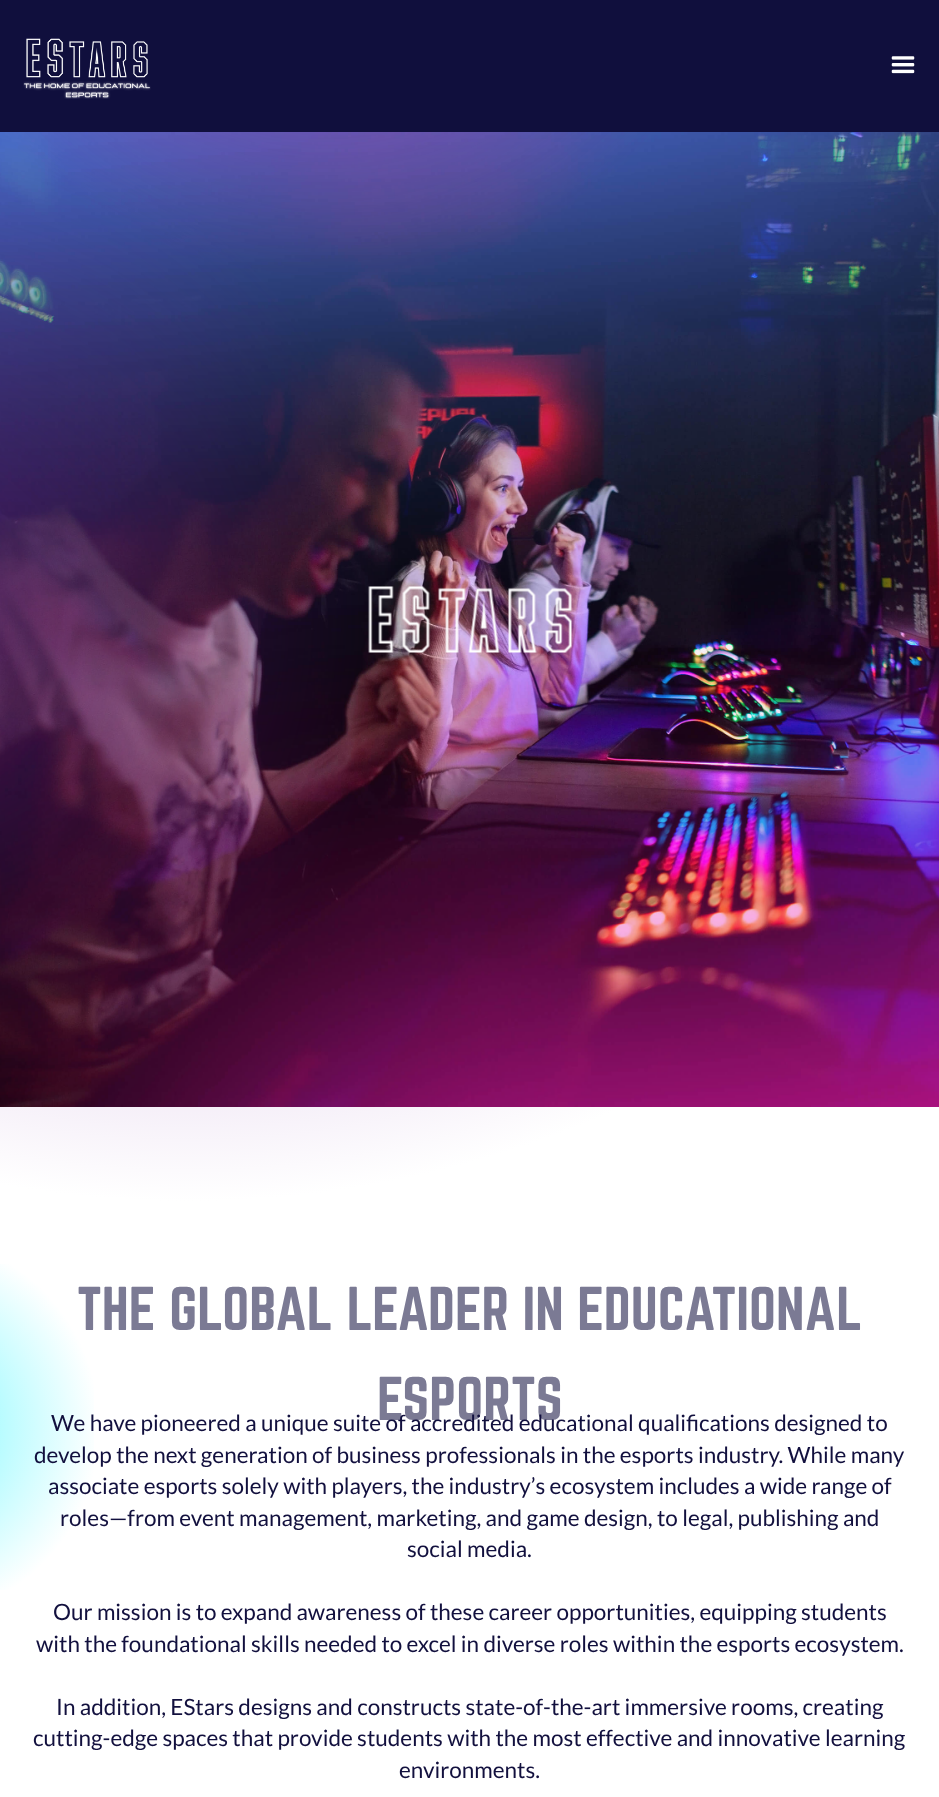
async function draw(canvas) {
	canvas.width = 939;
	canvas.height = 1797;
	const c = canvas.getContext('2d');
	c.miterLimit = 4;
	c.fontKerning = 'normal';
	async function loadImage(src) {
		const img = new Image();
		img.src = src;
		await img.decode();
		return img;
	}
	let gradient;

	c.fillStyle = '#100f3d';
	c.fillRect(0, 0, 939, 1797);
	c.drawImage(await loadImage('img1.png'), 23, 38, 128, 61);
	c.drawImage(await loadImage('img2.png'), 891, 56, 24, 18);
	c.drawImage(await loadImage('img3.png'), 0, 132, 939, 975);
	c.drawImage(await loadImage('img4.png'), 368, 586, 204, 67);
	gradient = c.createRadialGradient(188, 146, 0, 188, 146, 2029);
	gradient.addColorStop(0, '#9651b6');
	gradient.addColorStop(0.52, '#fff');
	c.fillStyle = gradient;
	c.fillRect(0, 1107, 939, 690);
	gradient = c.createRadialGradient(-94, 1427, 0, -94, 1427, 334);
	gradient.addColorStop(0, '#53f7ffcc');
	gradient.addColorStop(0.58, '#53f7ff00');
	c.fillStyle = gradient;
	c.fillRect(0, 1264, 94, 326);
	c.font = '54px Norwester';
	c.fillStyle = '#7b7a94';
	c.fillText('THE GLOBAL LEADER IN EDUCATIONAL', 77, 1330);
	c.fillText('ESPORTS', 377, 1420);
	c.font = '22.5px Lato';
	c.fillStyle = '#12103e';
	for (const [text, x, y] of [
		['We have pioneered a unique suite of accredited educational qualifications designed to', 51, 1431],
		['develop the next generation of business professionals in the esports industry. While many', 34, 1463],
		['associate esports solely with players, the industry’s ecosystem includes a wide range of', 48, 1494],
		['roles—from event management, marketing, and game design, to legal, publishing and', 60, 1526],
		['social media.', 407, 1557],
		['Our mission is to expand awareness of these career opportunities, equipping students', 53, 1620],
		['with the foundational skills needed to excel in diverse roles within the esports ecosystem.', 36, 1652],
		['In addition, EStars designs and constructs state-of-the-art immersive rooms, creating', 56, 1715],
		['cutting-edge spaces that provide students with the most effective and innovative learning', 33, 1746],
		['environments.', 399, 1778],
	]) {
		c.fillText(text, x, y);
	}
}

draw(document.querySelector('canvas'));
